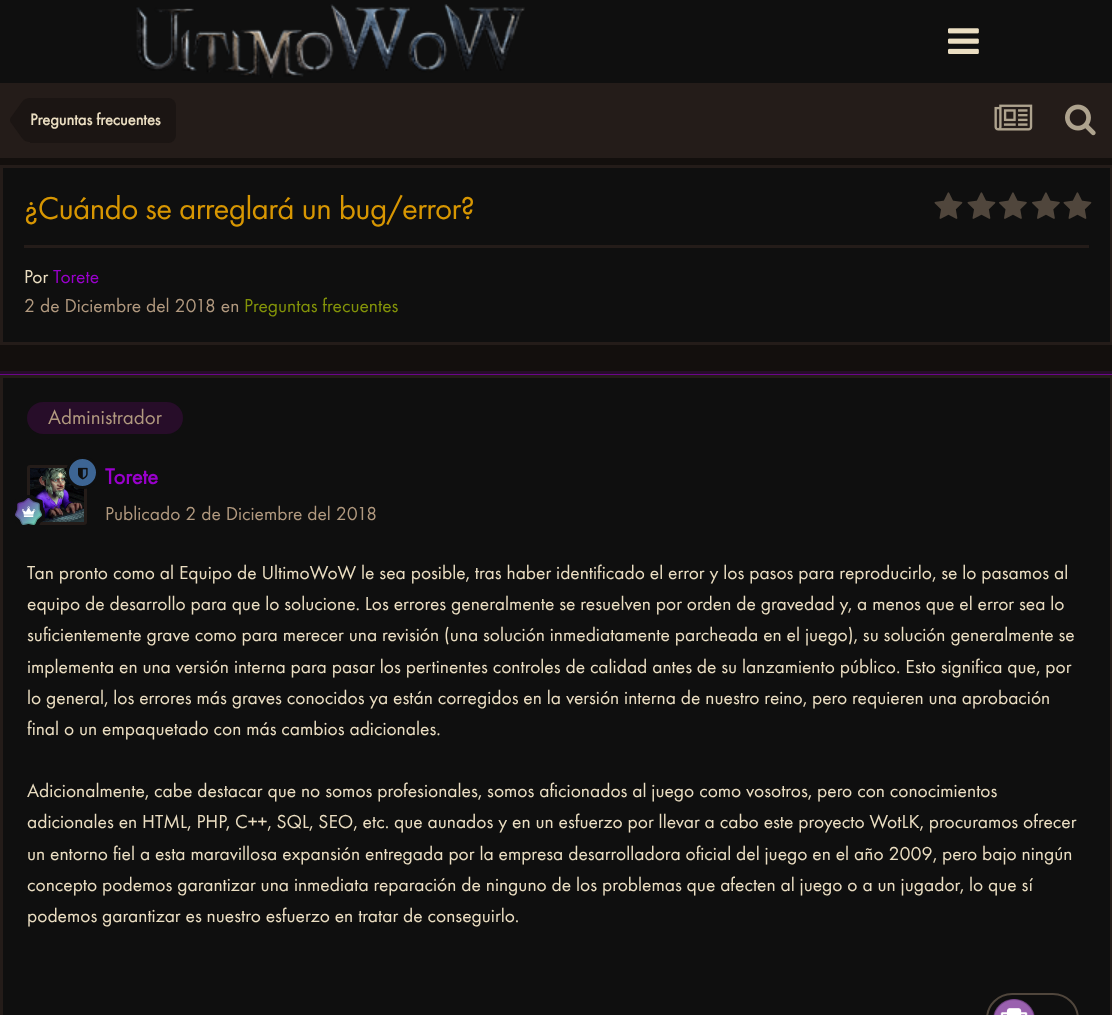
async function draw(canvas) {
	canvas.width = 1112;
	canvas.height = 1015;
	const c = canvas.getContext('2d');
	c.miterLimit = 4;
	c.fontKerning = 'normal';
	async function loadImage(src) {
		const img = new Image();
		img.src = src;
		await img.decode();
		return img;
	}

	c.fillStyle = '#130f0d';
	c.fillRect(0, 0, 1112, 1015);
	c.fillStyle = '#0f0f0f';
	c.fillRect(0, 0, 1112, 83);
	c.drawImage(await loadImage('img1.png'), 136, 4, 389, 74);
	c.drawImage(await loadImage('img2.png'), 948, 28, 31, 26);
	c.fillStyle = '#241c19';
	c.fillRect(0, 83, 1112, 75);
	c.fillStyle = '#1b1513';
	c.beginPath();
	c.roundRect(30, 98, 146, 45, [0, 8, 8, 0]);
	c.fill();
	c.beginPath();
	c.moveTo(30, 120);
	c.lineTo(30, 142);
	c.bezierCurveTo(27, 142, 24.5, 141, 22, 138);
	c.lineTo(10.5, 122);
	c.lineTo(10, 120);
	c.closePath();
	c.moveTo(30, 120);
	c.lineTo(10, 120);
	c.lineTo(10.5, 118);
	c.lineTo(22, 102);
	c.bezierCurveTo(24.5, 99, 27, 98, 30, 98);
	c.closePath();
	c.fill();
	c.font = 'bold 16.5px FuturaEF';
	c.fillStyle = '#ebdec2';
	c.fillText('Preguntas frecuentes', 30, 125);
	c.drawImage(await loadImage('img3.png'), 994, 104, 39, 27);
	c.drawImage(await loadImage('img4.png'), 1065, 104, 31, 32);
	c.fillStyle = '#0f0f0f';
	c.beginPath();
	c.rect(1.5, 166.5, 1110, 177);
	c.fill();
	c.strokeStyle = '#241c19';
	c.lineWidth = 3;
	c.stroke();
	c.letterSpacing = '-0.65px';
	c.font = '33px FuturaEF';
	c.fillStyle = '#d79602';
	c.fillText('¿Cuándo se arreglará un bug/error?', 24, 219);
	c.drawImage(await loadImage('img5.png'), 934, 192, 29, 27);
	c.drawImage(await loadImage('img5.png'), 967, 192, 29, 27);
	c.drawImage(await loadImage('img6.png'), 999, 192, 28, 27);
	c.drawImage(await loadImage('img6.png'), 1032, 192, 28, 27);
	c.drawImage(await loadImage('img5.png'), 1063, 192, 29, 27);
	c.fillStyle = '#241c19';
	c.fillRect(24, 245, 1065, 3);
	c.letterSpacing = '0px';
	c.font = '19.5px FuturaEF';
	c.fillStyle = '#ebdec2';
	c.fillText('Por', 24, 283);
	c.fillStyle = '#90c';
	c.fillText('Torete', 53, 283);
	c.fillStyle = '#b1997f';
	c.fillText('2 de Diciembre del 2018 en', 24, 312);
	c.fillStyle = '#839309';
	c.fillText('Preguntas frecuentes', 244, 312);
	c.strokeStyle = '#270d2a';
	c.lineWidth = 5;
	c.strokeRect(-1.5, 373.5, 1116, 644);
	c.strokeStyle = '#6b058b';
	c.lineWidth = 2;
	c.strokeRect(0, 375, 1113, 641);
	c.fillStyle = '#0f0f0f';
	c.beginPath();
	c.rect(1.5, 376.5, 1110, 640);
	c.fill();
	c.strokeStyle = '#241c19';
	c.lineWidth = 3;
	c.stroke();
	c.fillStyle = '#270d29';
	c.beginPath();
	c.roundRect(27, 402, 156, 32, 16);
	c.fill();
	c.font = '21px FuturaEF';
	c.fillStyle = '#b1997f';
	c.fillText('Administrador', 48, 424);
	c.beginPath();
	c.roundRect(28.5, 466.5, 57, 57, 1.5);
	c.stroke();
	c.drawImage(await loadImage('img8.png'), 30, 468, 54, 54);
	c.fillStyle = '#3d6594';
	c.beginPath();
	c.arc(82.5, 472.5, 15, 0, 2 * Math.PI);
	c.fill();
	c.strokeStyle = '#0f0f0f';
	c.stroke();
	c.drawImage(await loadImage('img7.png'), 78, 467, 10, 13);
	c.drawImage(await loadImage('img9.png'), 15, 495, 30, 30);
	c.font = 'bold 22.5px FuturaEF';
	c.fillStyle = '#90c';
	c.fillText('Torete', 105, 484);
	c.font = '19.5px FuturaEF';
	c.fillStyle = '#b1997f';
	c.fillText('Publicado 2 de Diciembre del 2018', 105, 520);
	c.fillStyle = '#ebdec2';
	for (const [text, x, y] of [
		['Tan pronto como al Equipo de UltimoWoW le sea posible, tras haber identificado el error y los pasos para reproducirlo, se lo pasamos al', 27, 579],
		['equipo de desarrollo para que lo solucione. Los errores generalmente se resuelven por orden de gravedad y, a menos que el error sea lo', 27, 610],
		['suficientemente grave como para merecer una revisión (una solución inmediatamente parcheada en el juego), su solución generalmente se', 27, 641],
		['implementa en una versión interna para pasar los pertinentes controles de calidad antes de su lanzamiento público. Esto significa que, por', 27, 673],
		['lo general, los errores más graves conocidos ya están corregidos en la versión interna de nuestro reino, pero requieren una aprobación', 27, 704],
		['final o un empaquetado con más cambios adicionales.', 27, 735],
		['Adicionalmente, cabe destacar que no somos profesionales, somos aficionados al juego como vosotros, pero con conocimientos', 27, 797],
		['adicionales en HTML, PHP, C++, SQL, SEO, etc. que aunados y en un esfuerzo por llevar a cabo este proyecto WotLK, procuramos ofrecer', 27, 828],
		['un entorno fiel a esta maravillosa expansión entregada por la empresa desarrolladora oficial del juego en el año 2009, pero bajo ningún', 27, 860],
		['concepto podemos garantizar una inmediata reparación de ninguno de los problemas que afecten al juego o a un jugador, lo que sí', 27, 891],
		['podemos garantizar es nuestro esfuerzo en tratar de conseguirlo.', 27, 922],
	]) {
		c.fillText(text, x, y);
	}
	c.beginPath();
	c.roundRect(987, 994, 91, 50, 27);
	c.strokeStyle = '#50463c';
	c.lineWidth = 2;
	c.stroke();
	c.drawImage(await loadImage('img10.png'), 993, 999, 42, 16);
}

draw(document.querySelector('canvas'));
